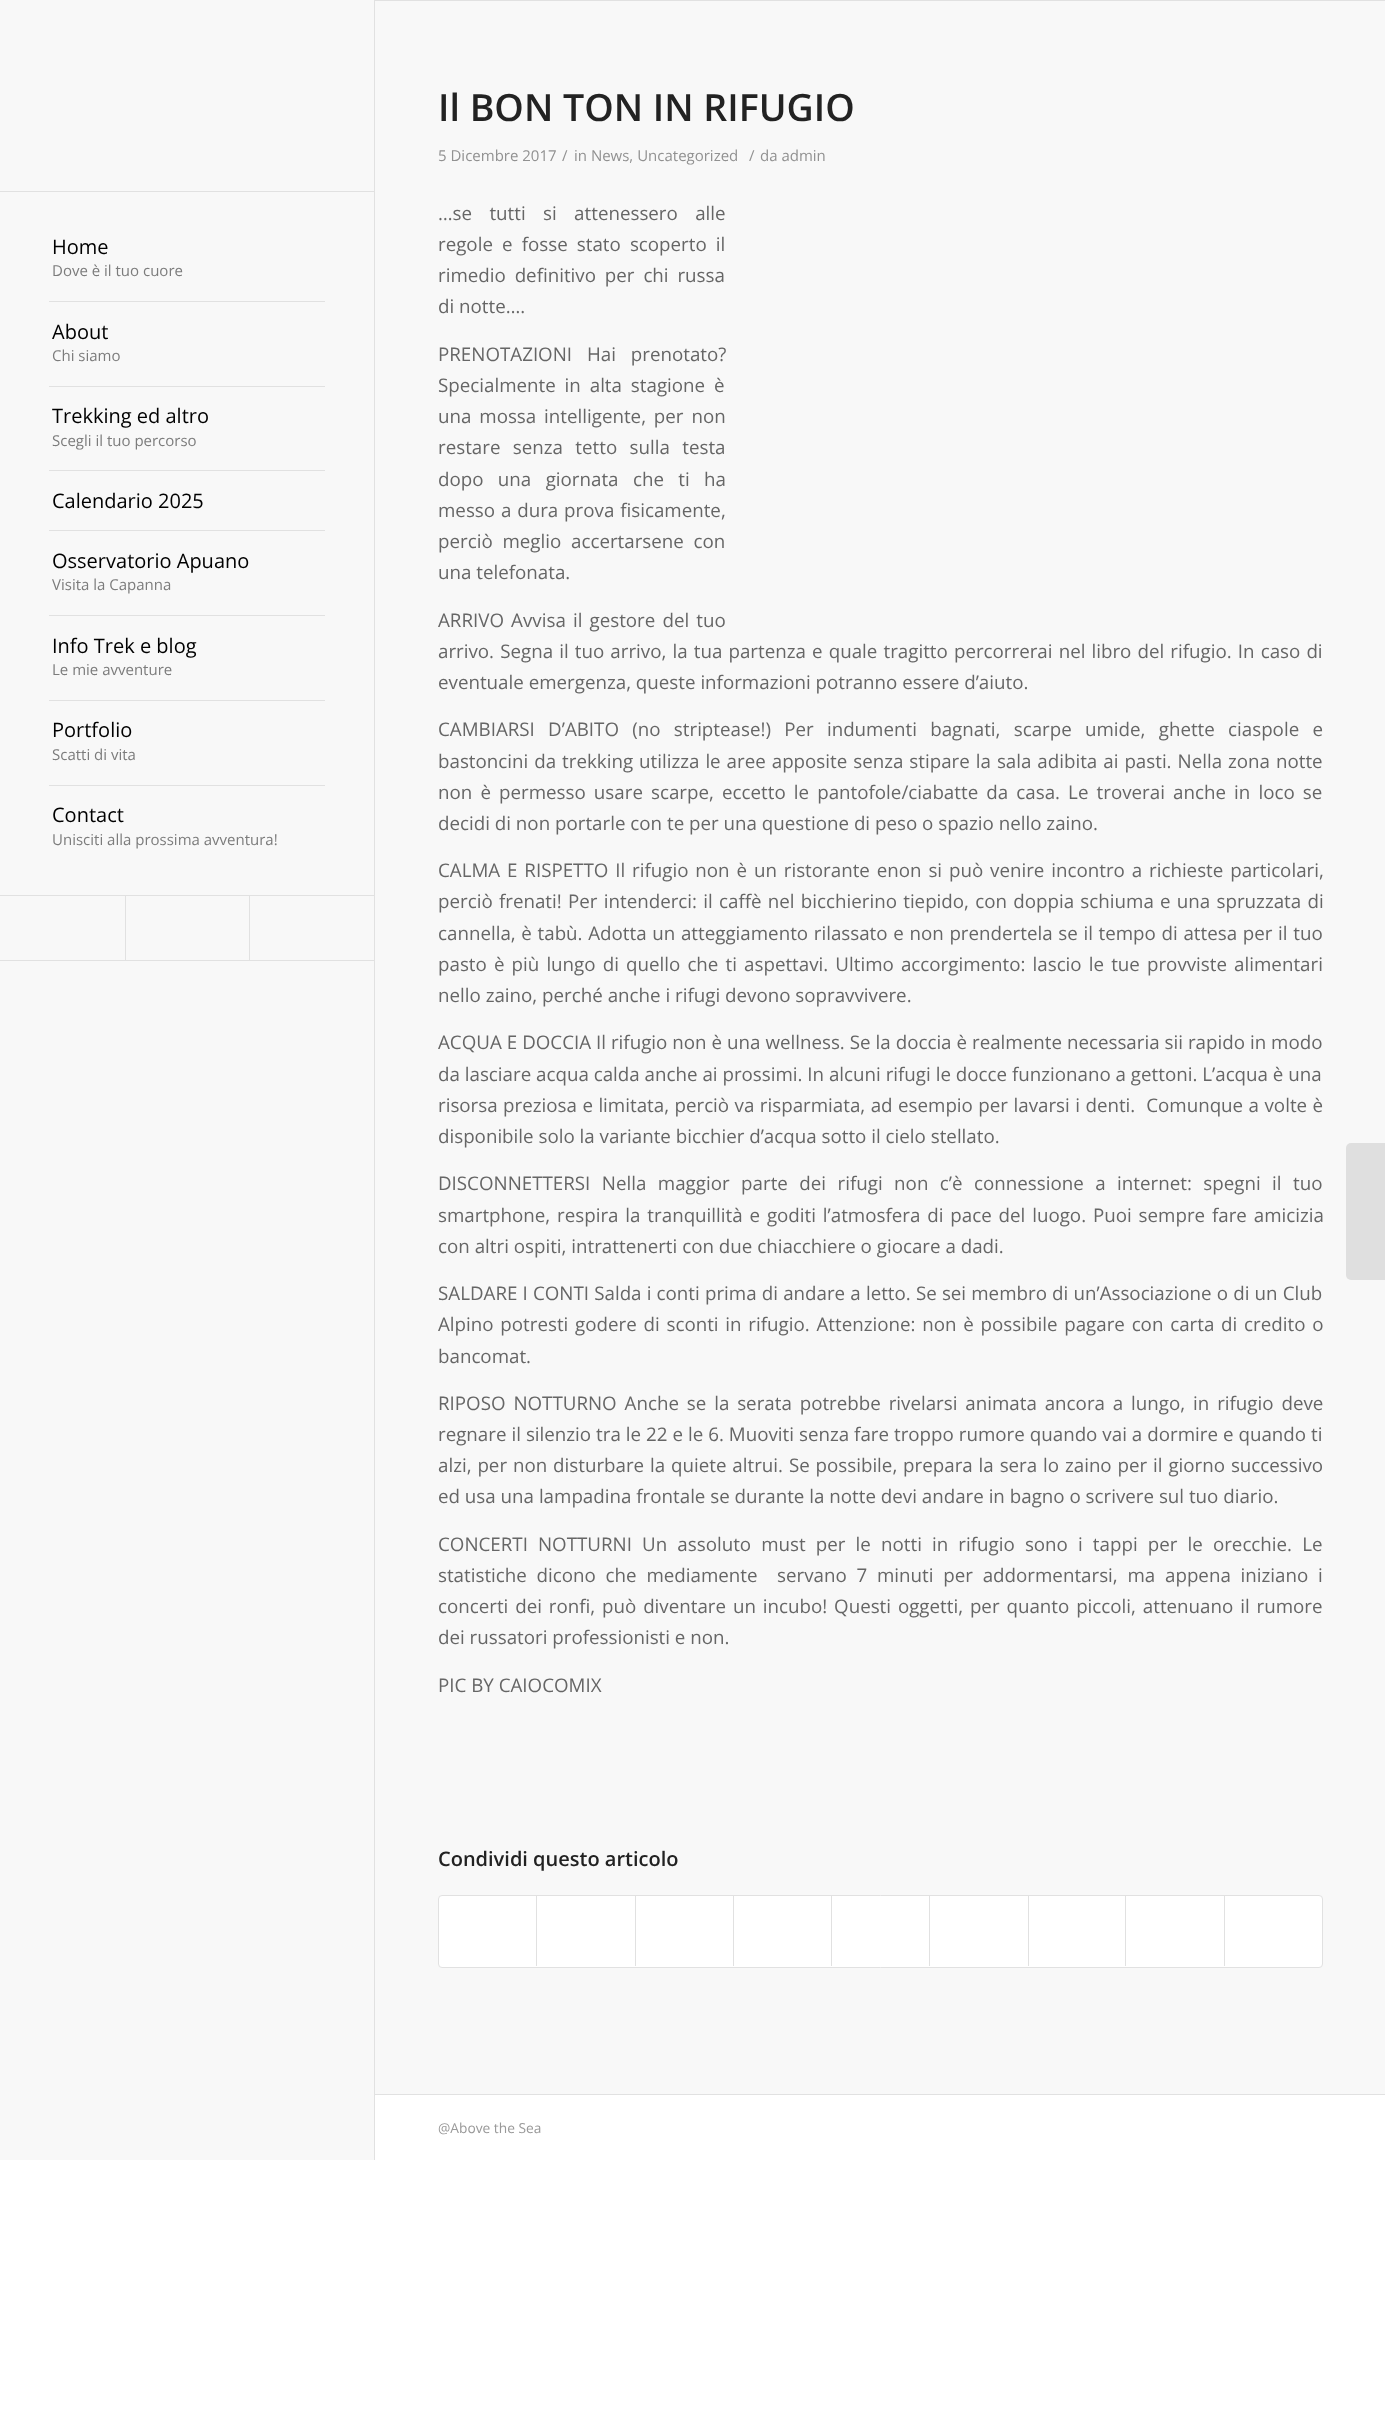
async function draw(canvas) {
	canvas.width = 1385;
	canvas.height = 2422;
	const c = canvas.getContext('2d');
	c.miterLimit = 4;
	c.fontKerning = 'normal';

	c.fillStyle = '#fff';
	c.fillRect(0, 0, 1385, 2422);
	for (const [x, y, w, h, color] of [
		[374, 0, 1, 2160, '#e1e1e1'],
		[0, 0, 374, 2160, '#f8f8f8'],
		[0, 960, 374, 1, '#e1e1e1'],
		[0, 191, 374, 1, '#e1e1e1'],
		[49, 301, 276, 1, '#e1e1e1'],
	]) {
		c.fillStyle = color;
		c.fillRect(x, y, w, h);
	}
	c.font = '20px Open Sans';
	c.fillStyle = '#000';
	c.fillText('Home', 52, 254);
	c.font = '15px Open Sans';
	c.fillStyle = '#7c7c7c';
	c.fillText('Dove è il tuo cuore', 52, 276);
	c.fillStyle = '#e1e1e1';
	c.fillRect(49, 386, 276, 1);
	c.font = '20px Open Sans';
	c.fillStyle = '#000';
	c.fillText('About', 52, 339);
	c.font = '15px Open Sans';
	c.fillStyle = '#7c7c7c';
	c.fillText('Chi siamo', 52, 361);
	c.fillStyle = '#e1e1e1';
	c.fillRect(49, 470, 276, 1);
	c.font = '20px Open Sans';
	c.fillStyle = '#000';
	c.fillText('Trekking ed altro', 52, 423);
	c.font = '15px Open Sans';
	c.fillStyle = '#7c7c7c';
	c.fillText('Scegli il tuo percorso', 52, 446);
	c.fillStyle = '#e1e1e1';
	c.fillRect(49, 530, 276, 1);
	c.font = '20px Open Sans';
	c.fillStyle = '#000';
	c.fillText('Calendario 2025', 52, 508);
	c.fillStyle = '#e1e1e1';
	c.fillRect(49, 615, 276, 1);
	c.fillStyle = '#000';
	c.fillText('Osservatorio Apuano', 52, 568);
	c.font = '15px Open Sans';
	c.fillStyle = '#7c7c7c';
	c.fillText('Visita la Capanna', 52, 590);
	c.fillStyle = '#e1e1e1';
	c.fillRect(49, 700, 276, 1);
	c.font = '20px Open Sans';
	c.fillStyle = '#000';
	c.fillText('Info Trek e blog', 52, 653);
	c.font = '15px Open Sans';
	c.fillStyle = '#7c7c7c';
	c.fillText('Le mie avventure', 52, 675);
	c.fillStyle = '#e1e1e1';
	c.fillRect(49, 785, 276, 1);
	c.font = '20px Open Sans';
	c.fillStyle = '#000';
	c.fillText('Portfolio', 52, 737);
	c.font = '15px Open Sans';
	c.fillStyle = '#7c7c7c';
	c.fillText('Scatti di vita', 52, 760);
	c.font = '20px Open Sans';
	c.fillStyle = '#000';
	c.fillText('Contact', 52, 822);
	c.font = '15px Open Sans';
	c.fillStyle = '#7c7c7c';
	c.fillText('Unisciti alla prossima avventura!', 52, 845);
	for (const [x, y, w, h, color] of [
		[0, 895, 374, 1, '#e1e1e1'],
		[125, 896, 1, 64, '#e1e1e1'],
		[249, 896, 1, 64, '#e1e1e1'],
		[375, 1, 1010, 2093, '#f8f8f8'],
		[375, 0, 1010, 1, '#e1e1e1'],
	]) {
		c.fillStyle = color;
		c.fillRect(x, y, w, h);
	}
	c.font = '600 37.5px Open Sans';
	c.fillStyle = '#222';
	c.fillText('Il BON TON IN RIFUGIO', 438, 121);
	c.font = '15px Open Sans';
	c.fillStyle = '#919191';
	for (const [text, x, y] of [
		['5 Dicembre 2017', 438, 161],
		['/', 562, 161],
		['in News, Uncategorized', 574, 161],
		['/', 749, 161],
		['da admin', 760, 161],
	]) {
		c.fillText(text, x, y);
	}
	c.wordSpacing = '12.5px';
	c.font = '18.75px Open Sans';
	c.fillStyle = '#666';
	c.fillText('…se tutti si attenessero alle', 438, 220);
	c.wordSpacing = '4.25px';
	c.fillText('regole e fosse stato scoperto il', 438, 251);
	c.wordSpacing = '4px';
	c.fillText('rimedio definitivo per chi russa', 438, 282);
	c.wordSpacing = '0px';
	c.fillText('di notte….', 438, 313);
	c.wordSpacing = '10px';
	c.fillText('PRENOTAZIONI Hai prenotato?', 438, 361);
	c.wordSpacing = '4px';
	c.fillText('Specialmente in alta stagione è', 438, 392);
	c.wordSpacing = '3px';
	c.fillText('una mossa intelligente, per non', 438, 423);
	c.wordSpacing = '7.5px';
	c.fillText('restare senza tetto sulla testa', 438, 454);
	c.wordSpacing = '9.5px';
	c.fillText('dopo una giornata che ti ha', 438, 486);
	c.wordSpacing = '1px';
	c.fillText('messo a dura prova fisicamente,', 438, 517);
	c.wordSpacing = '4.9px';
	c.fillText('perciò meglio accertarsene con', 438, 548);
	c.wordSpacing = '0px';
	c.fillText('una telefonata.', 438, 579);
	c.wordSpacing = '2.25px';
	c.fillText('ARRIVO Avvisa il gestore del tuo', 438, 627);
	c.wordSpacing = '1.25px';
	c.fillText('arrivo. Segna il tuo arrivo, la tua partenza e quale tragitto percorrerai nel libro del rifugio. In caso di', 438, 658);
	c.wordSpacing = '0px';
	c.fillText('eventuale emergenza, queste informazioni potranno essere d’aiuto.', 438, 689);
	c.wordSpacing = '8.4px';
	c.fillText('CAMBIARSI D’ABITO (no striptease!) Per indumenti bagnati, scarpe umide, ghette ciaspole e', 438, 736);
	c.wordSpacing = '1.1px';
	c.fillText('bastoncini da trekking utilizza le aree apposite senza stipare la sala adibita ai pasti. Nella zona notte', 438, 768);
	c.wordSpacing = '3.25px';
	c.fillText('non è permesso usare scarpe, eccetto le pantofole/ciabatte da casa. Le troverai anche in loco se', 438, 799);
	c.wordSpacing = '0px';
	c.fillText('decidi di non portarle con te per una questione di peso o spazio nello zaino.', 438, 830);
	c.wordSpacing = '2px';
	c.fillText('CALMA E RISPETTO Il rifugio non è un ristorante enon si può venire incontro a richieste particolari,', 438, 877);
	c.wordSpacing = '1.4px';
	c.fillText('perciò frenati! Per intenderci: il caffè nel bicchierino tiepido, con doppia schiuma e una spruzzata di', 438, 908);
	c.wordSpacing = '0.8px';
	c.fillText('cannella, è tabù. Adotta un atteggiamento rilassato e non prendertela se il tempo di attesa per il tuo', 438, 940);
	c.wordSpacing = '2.25px';
	c.fillText('pasto è più lungo di quello che ti aspettavi. Ultimo accorgimento: lascio le tue provviste alimentari', 438, 971);
	c.wordSpacing = '0px';
	c.fillText('nello zaino, perché anche i rifugi devono sopravvivere.', 438, 1002);
	c.wordSpacing = '0.1px';
	c.fillText('ACQUA E DOCCIA Il rifugio non è una wellness. Se la doccia è realmente necessaria sii rapido in modo', 438, 1049);
	c.wordSpacing = '0px';
	c.fillText('da lasciare acqua calda anche ai prossimi. In alcuni rifugi le docce funzionano a gettoni. L’acqua è una', 438, 1081);
	c.wordSpacing = '0.6px';
	c.fillText('risorsa preziosa e limitata, perciò va risparmiata, ad esempio per lavarsi i denti.  Comunque a volte è', 438, 1112);
	c.wordSpacing = '0px';
	c.fillText('disponibile solo la variante bicchier d’acqua sotto il cielo stellato.', 438, 1143);
	c.wordSpacing = '6.6px';
	c.fillText('DISCONNETTERSI Nella maggior parte dei rifugi non c’è connessione a internet: spegni il tuo', 438, 1190);
	c.wordSpacing = '2px';
	c.fillText('smartphone, respira la tranquillità e goditi l’atmosfera di pace del luogo. Puoi sempre fare amicizia', 438, 1222);
	c.wordSpacing = '0px';
	c.fillText('con altri ospiti, intrattenerti con due chiacchiere o giocare a dadi.', 438, 1253);
	c.wordSpacing = '0.3px';
	c.fillText('SALDARE I CONTI Salda i conti prima di andare a letto. Se sei membro di un’Associazione o di un Club', 438, 1300);
	c.wordSpacing = '1.9px';
	c.fillText('Alpino potresti godere di sconti in rifugio. Attenzione: non è possibile pagare con carta di credito o', 438, 1331);
	c.wordSpacing = '0px';
	c.fillText('bancomat.', 438, 1363);
	c.wordSpacing = '3px';
	c.fillText('RIPOSO NOTTURNO Anche se la serata potrebbe rivelarsi animata ancora a lungo, in rifugio deve', 438, 1410);
	c.wordSpacing = '0.1px';
	c.fillText('regnare il silenzio tra le 22 e le 6. Muoviti senza fare troppo rumore quando vai a dormire e quando ti', 438, 1441);
	c.wordSpacing = '1px';
	c.fillText('alzi, per non disturbare la quiete altrui. Se possibile, prepara la sera lo zaino per il giorno successivo', 438, 1472);
	c.wordSpacing = '0px';
	c.fillText('ed usa una lampadina frontale se durante la notte devi andare in bagno o scrivere sul tuo diario.', 438, 1503);
	c.wordSpacing = '5.25px';
	c.fillText('CONCERTI NOTTURNI Un assoluto must per le notti in rifugio sono i tappi per le orecchie. Le', 438, 1551);
	c.wordSpacing = '4.9px';
	c.fillText('statistiche dicono che mediamente  servano 7 minuti per addormentarsi, ma appena iniziano i', 438, 1582);
	c.wordSpacing = '2px';
	c.fillText('concerti dei ronfi, può diventare un incubo! Questi oggetti, per quanto piccoli, attenuano il rumore', 438, 1613);
	c.wordSpacing = '0px';
	c.fillText('dei russatori professionisti e non.', 438, 1644);
	c.fillText('PIC BY CAIOCOMIX', 438, 1692);
	c.font = '600 20px Open Sans';
	c.fillStyle = '#222';
	c.fillText('Condividi questo articolo', 438, 1866);
	c.fillStyle = '#fff';
	c.beginPath();
	c.roundRect(438.5, 1895.5, 884, 72, 3.5);
	c.fill();
	c.strokeStyle = '#e1e1e1';
	c.stroke();
	for (const [x, y, w, h, color] of [
		[536, 1896, 1, 70, '#e1e1e1'],
		[635, 1896, 1, 70, '#e1e1e1'],
		[733, 1896, 1, 70, '#e1e1e1'],
		[831, 1896, 1, 70, '#e1e1e1'],
		[929, 1896, 1, 70, '#e1e1e1'],
		[1028, 1896, 1, 70, '#e1e1e1'],
		[1125, 1896, 1, 70, '#e1e1e1'],
		[1224, 1896, 1, 70, '#e1e1e1'],
		[375, 2094, 1010, 1, '#e1e1e1'],
	]) {
		c.fillStyle = color;
		c.fillRect(x, y, w, h);
	}
	c.font = '13.75px Open Sans';
	c.fillStyle = '#999';
	c.fillText('@Above the Sea', 438, 2133);
	c.fillStyle = '#dfdfdf';
	c.beginPath();
	c.roundRect(1346, 1143, 39, 137, [5, 0, 0, 5]);
	c.fill();
}

draw(document.querySelector('canvas'));
